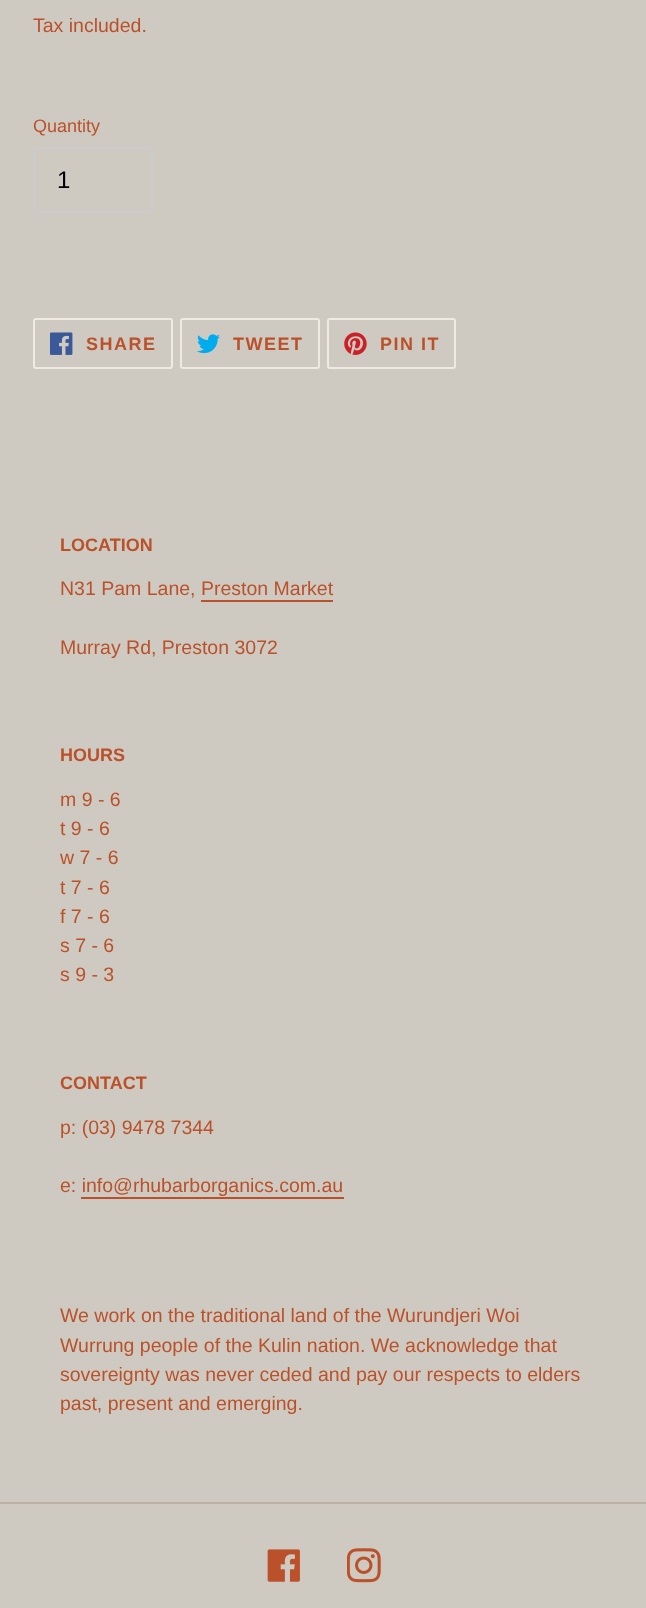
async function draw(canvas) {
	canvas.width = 646;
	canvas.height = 1608;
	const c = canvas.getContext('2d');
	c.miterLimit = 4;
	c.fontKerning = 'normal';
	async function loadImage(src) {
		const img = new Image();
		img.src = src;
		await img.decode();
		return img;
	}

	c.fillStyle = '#cfcac1';
	c.fillRect(0, 0, 646, 1608);
	c.font = '19.5px Liberation Sans';
	c.fillStyle = '#bb512a';
	c.fillText('Tax included.', 33, 32);
	c.font = '18px Liberation Sans';
	c.fillText('Quantity', 33, 132);
	c.beginPath();
	c.roundRect(34, 148, 118, 64, 2);
	c.strokeStyle = '#ccc';
	c.lineWidth = 2;
	c.stroke();
	c.font = '24px Liberation Sans';
	c.fillStyle = '#000';
	c.fillText('1', 57, 188);
	c.beginPath();
	c.roundRect(34, 319, 138, 49, 2);
	c.strokeStyle = '#efeae2';
	c.stroke();
	c.drawImage(await loadImage('img1.png'), 50, 332, 23, 23);
	c.letterSpacing = '1.5px';
	c.font = 'bold 18px Liberation Sans';
	c.fillStyle = '#bb512a';
	c.fillText('SHARE', 86, 350);
	c.beginPath();
	c.roundRect(181, 319, 138, 49, 2);
	c.stroke();
	c.drawImage(await loadImage('img2.png'), 197, 334, 23, 20);
	c.fillText('TWEET', 233, 350);
	c.beginPath();
	c.roundRect(328, 319, 127, 49, 2);
	c.stroke();
	c.drawImage(await loadImage('img3.png'), 344, 332, 23, 23);
	c.fillText('PIN IT', 380, 350);
	c.letterSpacing = '0px';
	c.fillText('LOCATION', 60, 551);
	c.font = '19.5px Liberation Sans';
	c.fillText('N31 Pam Lane, Preston Market', 60, 595);
	c.fillRect(201, 600, 132, 2);
	c.fillText('Murray Rd, Preston 3072', 60, 654);
	c.font = 'bold 18px Liberation Sans';
	c.fillText('HOURS', 60, 761);
	c.font = '19.5px Liberation Sans';
	for (const [text, x, y] of [
		['m 9 - 6', 60, 806],
		['t 9 - 6', 60, 835],
		['w 7 - 6', 60, 864],
		['t 7 - 6', 60, 894],
		['f 7 - 6', 60, 923],
		['s 7 - 6', 60, 952],
		['s 9 - 3', 60, 981],
	]) {
		c.fillText(text, x, y);
	}
	c.font = 'bold 18px Liberation Sans';
	c.fillText('CONTACT', 60, 1089);
	c.font = '19.5px Liberation Sans';
	c.fillText('p: (03) 9478 7344', 60, 1134);
	c.fillText('e: info@rhubarborganics.com.au', 60, 1192);
	c.fillRect(81, 1197, 263, 2);
	for (const [text, x, y] of [
		['We work on the traditional land of the Wurundjeri Woi', 60, 1322],
		['Wurrung people of the Kulin nation. We acknowledge that', 60, 1352],
		['sovereignty was never ceded and pay our respects to elders', 60, 1381],
		['past, present and emerging.', 60, 1410],
	]) {
		c.fillText(text, x, y);
	}
	c.fillStyle = '#bab1a3';
	c.fillRect(0, 1502, 646, 2);
	c.drawImage(await loadImage('img4.png'), 267, 1549, 33, 33);
	c.drawImage(await loadImage('img5.png'), 347, 1548, 34, 35);
}

draw(document.querySelector('canvas'));
